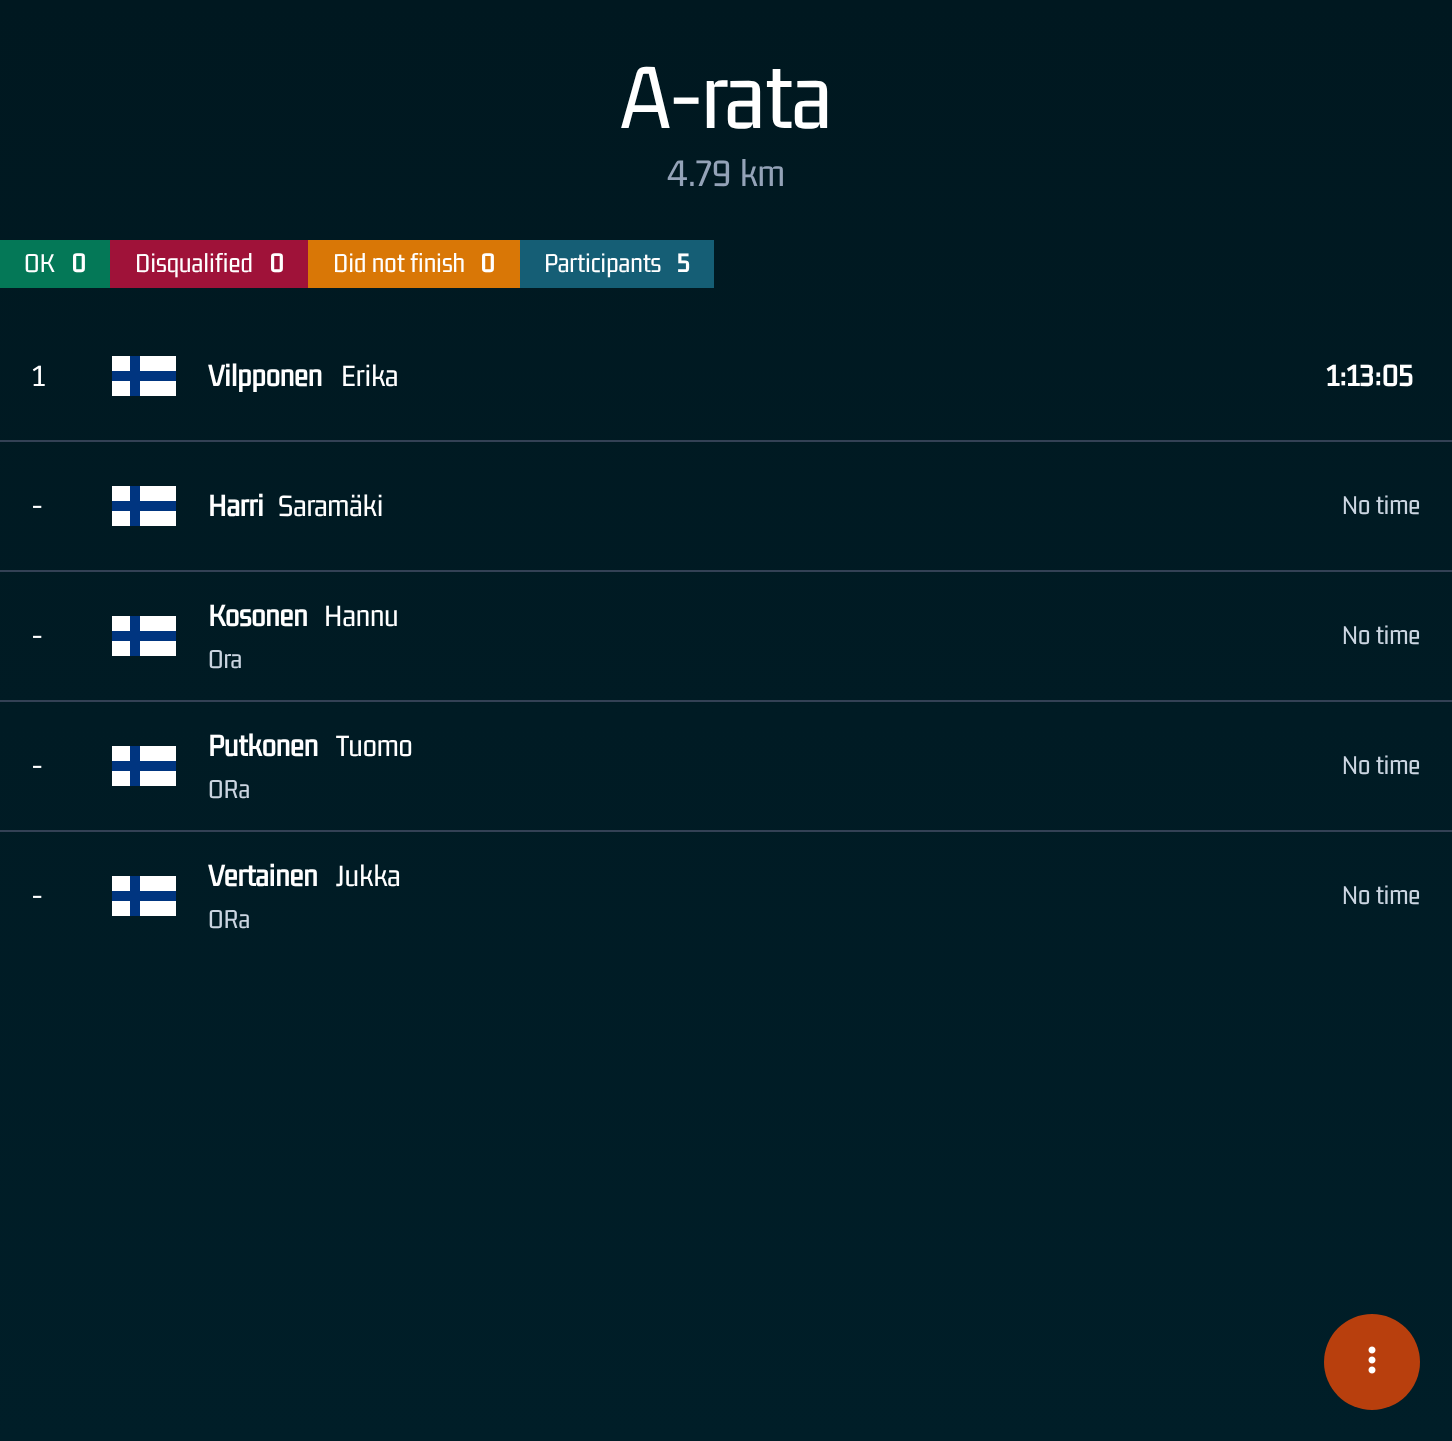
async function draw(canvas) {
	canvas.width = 1452;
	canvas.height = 1441;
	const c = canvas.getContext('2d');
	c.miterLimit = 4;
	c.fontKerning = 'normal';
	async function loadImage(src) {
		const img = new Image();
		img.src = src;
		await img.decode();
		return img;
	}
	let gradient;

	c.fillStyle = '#fff';
	c.fillRect(0, 0, 1452, 1441);
	gradient = c.createLinearGradient(726, 0, 726, 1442);
	gradient.addColorStop(0, '#001820');
	gradient.addColorStop(1, '#001e28');
	c.fillStyle = gradient;
	c.fillRect(0, 0, 1452, 1441);
	c.font = '96px Gemunu Libre';
	c.fillStyle = '#fff';
	c.fillText('A-rata', 620, 128);
	c.font = '40px Gemunu Libre';
	c.fillStyle = '#94a3b8';
	c.fillText('4.79 km', 667, 186);
	c.fillStyle = '#047857';
	c.fillRect(0, 240, 110, 48);
	c.font = '28px Gemunu Libre';
	c.fillStyle = '#fff';
	c.fillText('OK', 24, 272);
	c.font = 'bold 28px Gemunu Libre';
	c.fillText('0', 71, 272);
	c.fillStyle = '#9f1239';
	c.fillRect(110, 240, 198, 48);
	c.font = '28px Gemunu Libre';
	c.fillStyle = '#fff';
	c.fillText('Disqualified', 135, 272);
	c.font = 'bold 28px Gemunu Libre';
	c.fillText('0', 269, 272);
	c.fillStyle = '#d97706';
	c.fillRect(308, 240, 212, 48);
	c.font = '28px Gemunu Libre';
	c.fillStyle = '#fff';
	c.fillText('Did not finish', 333, 272);
	c.font = 'bold 28px Gemunu Libre';
	c.fillText('0', 480, 272);
	c.fillStyle = '#155e75';
	c.fillRect(520, 240, 194, 48);
	c.font = '28px Gemunu Libre';
	c.fillStyle = '#fff';
	c.fillText('Participants', 544, 272);
	c.font = 'bold 28px Gemunu Libre';
	c.fillText('5', 677, 272);
	c.fillStyle = '#334155';
	c.fillRect(0, 440, 1452, 2);
	c.font = '32px Gemunu Libre';
	c.fillStyle = '#fff';
	c.fillText('1', 32, 386);
	for (const [x, y, w, h, color] of [
		[112, 356, 64, 40, '#fff'],
		[112, 371, 64, 10, '#003580'],
		[130, 356, 10, 40, '#003580'],
	]) {
		c.fillStyle = color;
		c.fillRect(x, y, w, h);
	}
	c.font = 'bold 32px Gemunu Libre';
	c.fillStyle = '#fff';
	c.fillText('Vilpponen', 208, 386);
	c.font = '32px Gemunu Libre';
	c.fillText('Erika', 341, 386);
	c.font = 'bold 32px Gemunu Libre';
	c.fillText('1:13:05', 1326, 386);
	c.fillStyle = '#334155';
	c.fillRect(0, 570, 1452, 2);
	c.font = '32px Gemunu Libre';
	c.fillStyle = '#fff';
	c.fillText('-', 32, 516);
	for (const [x, y, w, h, color] of [
		[112, 486, 64, 40, '#fff'],
		[112, 501, 64, 10, '#003580'],
		[130, 486, 10, 40, '#003580'],
	]) {
		c.fillStyle = color;
		c.fillRect(x, y, w, h);
	}
	c.font = 'bold 32px Gemunu Libre';
	c.fillStyle = '#fff';
	c.fillText('Harri', 208, 516);
	c.font = '32px Gemunu Libre';
	c.fillText('Saramäki', 278, 516);
	c.font = '28px Gemunu Libre';
	c.fillStyle = '#cbd5e1';
	c.fillText('No time', 1342, 514);
	c.fillStyle = '#334155';
	c.fillRect(0, 700, 1452, 2);
	c.font = '32px Gemunu Libre';
	c.fillStyle = '#fff';
	c.fillText('-', 32, 646);
	for (const [x, y, w, h, color] of [
		[112, 616, 64, 40, '#fff'],
		[112, 631, 64, 10, '#003580'],
		[130, 616, 10, 40, '#003580'],
	]) {
		c.fillStyle = color;
		c.fillRect(x, y, w, h);
	}
	c.font = 'bold 32px Gemunu Libre';
	c.fillStyle = '#fff';
	c.fillText('Kosonen', 208, 626);
	c.font = '32px Gemunu Libre';
	c.fillText('Hannu', 324, 626);
	c.font = '28px Gemunu Libre';
	c.fillStyle = '#cbd5e1';
	c.fillText('Ora', 208, 668);
	c.fillText('No time', 1342, 644);
	c.fillStyle = '#334155';
	c.fillRect(0, 830, 1452, 2);
	c.font = '32px Gemunu Libre';
	c.fillStyle = '#fff';
	c.fillText('-', 32, 776);
	for (const [x, y, w, h, color] of [
		[112, 746, 64, 40, '#fff'],
		[112, 761, 64, 10, '#003580'],
		[130, 746, 10, 40, '#003580'],
	]) {
		c.fillStyle = color;
		c.fillRect(x, y, w, h);
	}
	c.font = 'bold 32px Gemunu Libre';
	c.fillStyle = '#fff';
	c.fillText('Putkonen', 208, 756);
	c.font = '32px Gemunu Libre';
	c.fillText('Tuomo', 336, 756);
	c.font = '28px Gemunu Libre';
	c.fillStyle = '#cbd5e1';
	c.fillText('ORa', 208, 798);
	c.fillText('No time', 1342, 774);
	c.font = '32px Gemunu Libre';
	c.fillStyle = '#fff';
	c.fillText('-', 32, 906);
	for (const [x, y, w, h, color] of [
		[112, 876, 64, 40, '#fff'],
		[112, 891, 64, 10, '#003580'],
		[130, 876, 10, 40, '#003580'],
	]) {
		c.fillStyle = color;
		c.fillRect(x, y, w, h);
	}
	c.font = 'bold 32px Gemunu Libre';
	c.fillStyle = '#fff';
	c.fillText('Vertainen', 208, 886);
	c.font = '32px Gemunu Libre';
	c.fillText('Jukka', 336, 886);
	c.font = '28px Gemunu Libre';
	c.fillStyle = '#cbd5e1';
	c.fillText('ORa', 208, 928);
	c.fillText('No time', 1342, 904);
	c.fillStyle = '#b83f0d';
	c.beginPath();
	c.arc(1372, 1362, 48, 0, 2 * Math.PI);
	c.fill();
	c.drawImage(await loadImage('img1.png'), 1368, 1346, 8, 28);
}

draw(document.querySelector('canvas'));
